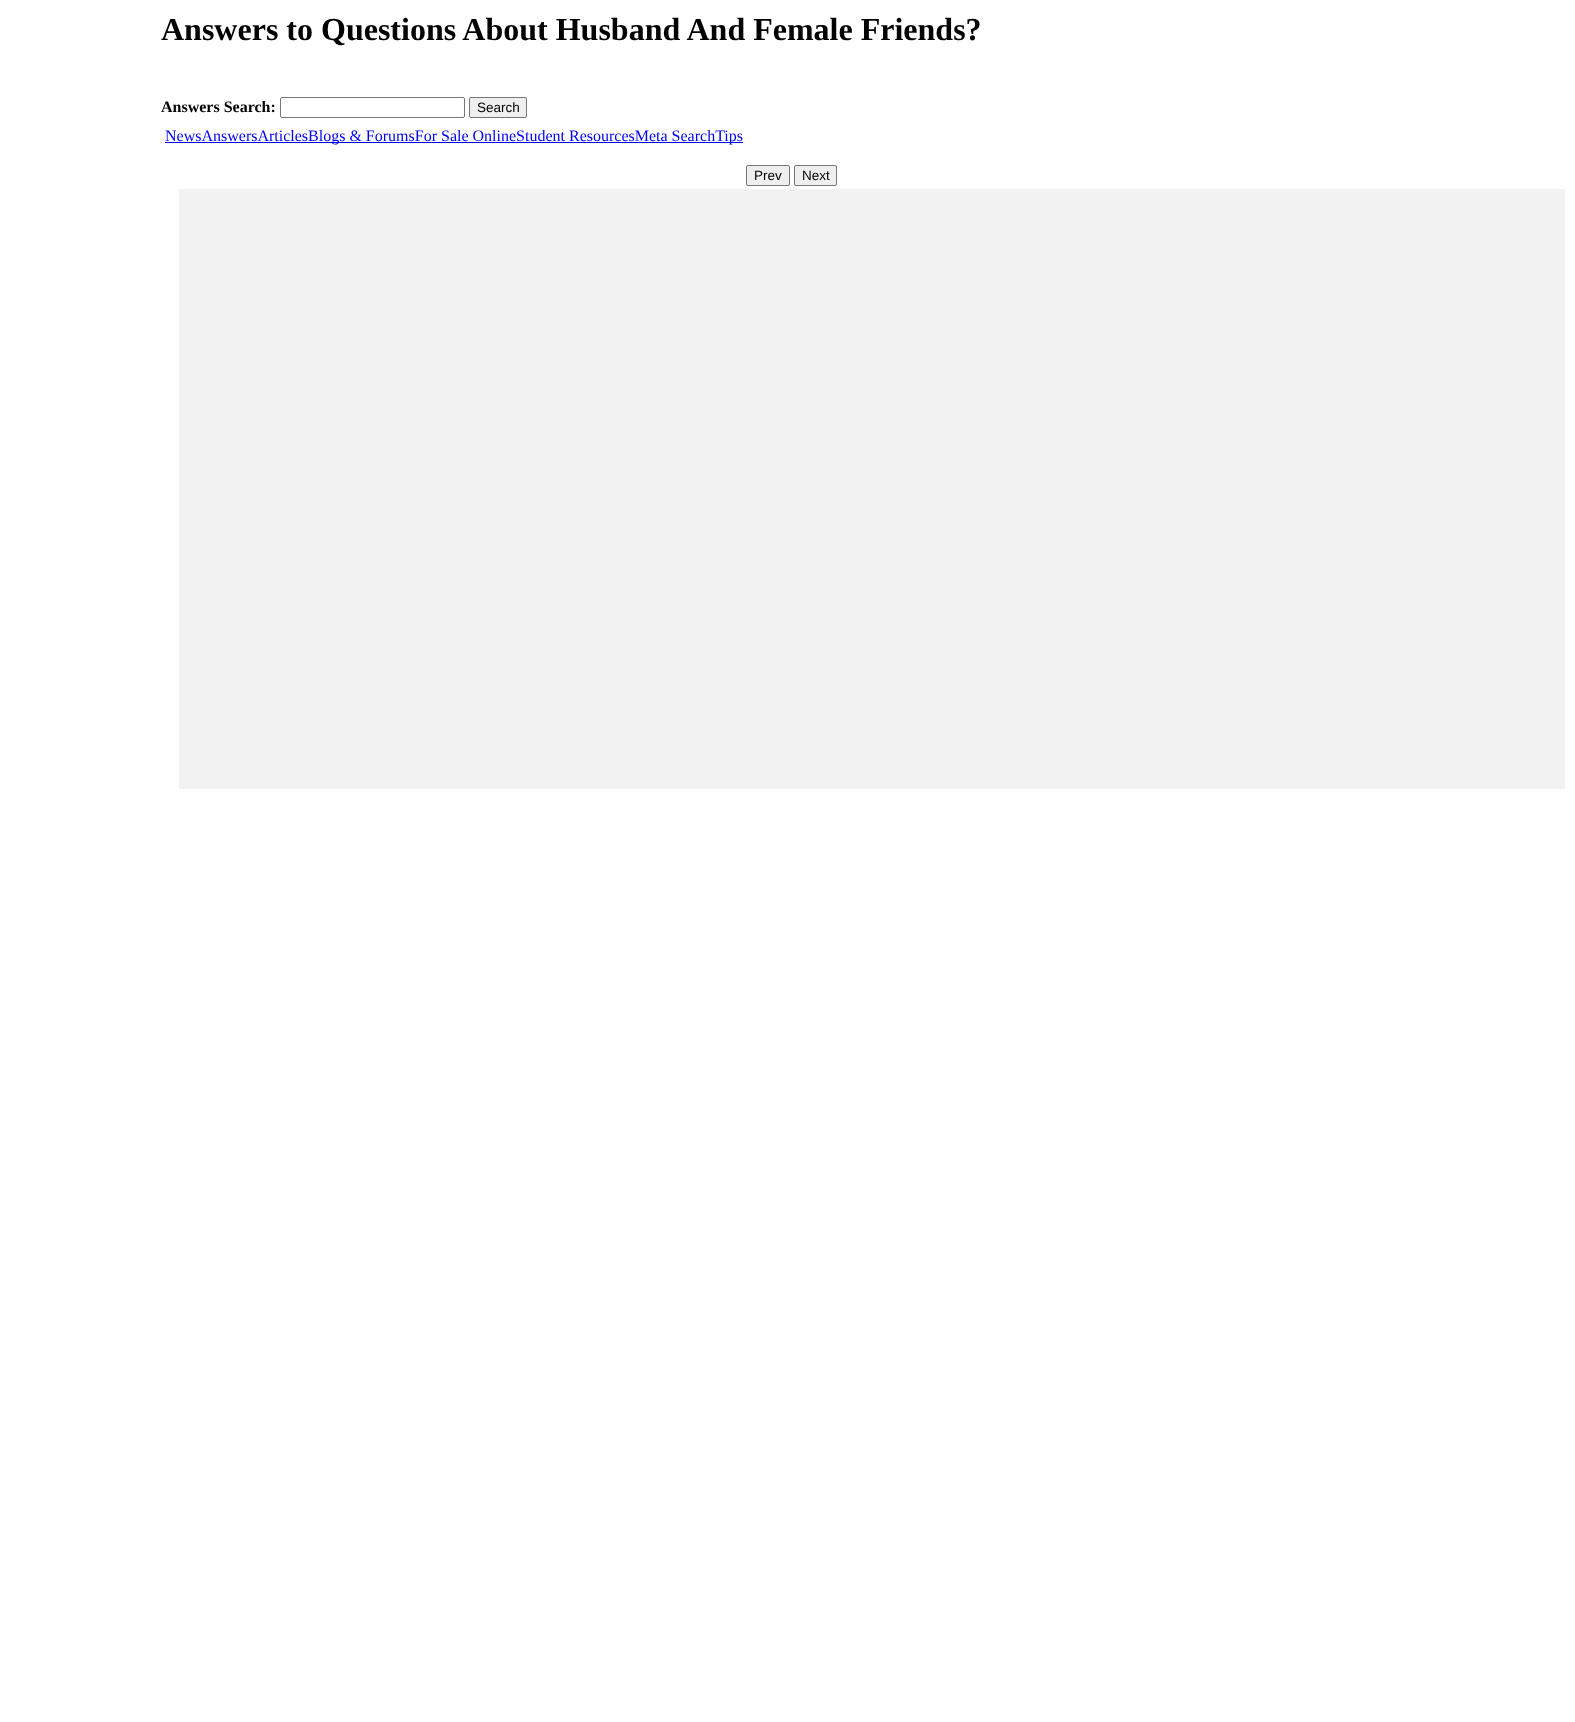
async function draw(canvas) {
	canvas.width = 1575;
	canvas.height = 1722;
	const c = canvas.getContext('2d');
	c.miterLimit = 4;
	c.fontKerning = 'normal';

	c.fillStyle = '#fff';
	c.fillRect(0, 0, 1575, 1722);
	c.font = 'bold 32px Liberation Serif';
	c.fillStyle = '#000';
	c.fillText('Answers to Questions About Husband And Female Friends?', 161, 40);
	c.font = 'bold 16px Liberation Serif';
	c.fillText('Answers Search:', 161, 112);
	c.beginPath();
	c.roundRect(280.5, 97.5, 184, 20, 1.5);
	c.strokeStyle = '#767676';
	c.stroke();
	c.fillStyle = '#efefef';
	c.beginPath();
	c.roundRect(469.5, 97.5, 57, 20, 1.5);
	c.fill();
	c.stroke();
	c.font = '13.5px Liberation Sans';
	c.fillStyle = '#000';
	c.fillText('Search', 477, 112);
	c.fillStyle = '#00e';
	c.fillRect(165, 142, 578, 1);
	c.font = '16px Liberation Serif';
	c.fillText('NewsAnswersArticlesBlogs & ForumsFor Sale OnlineStudent ResourcesMeta SearchTips', 165, 141);
	c.fillStyle = '#efefef';
	c.beginPath();
	c.roundRect(746.5, 165.5, 43, 20, 1.5);
	c.fill();
	c.stroke();
	c.font = '13.5px Liberation Sans';
	c.fillStyle = '#000';
	c.fillText('Prev', 754, 180);
	c.fillStyle = '#efefef';
	c.beginPath();
	c.roundRect(794.5, 165.5, 42, 20, 1.5);
	c.fill();
	c.stroke();
	c.fillStyle = '#000';
	c.fillText('Next', 802, 180);
	c.fillStyle = '#f2f2f2';
	c.fillRect(179, 189, 1386, 600);
}

draw(document.querySelector('canvas'));
